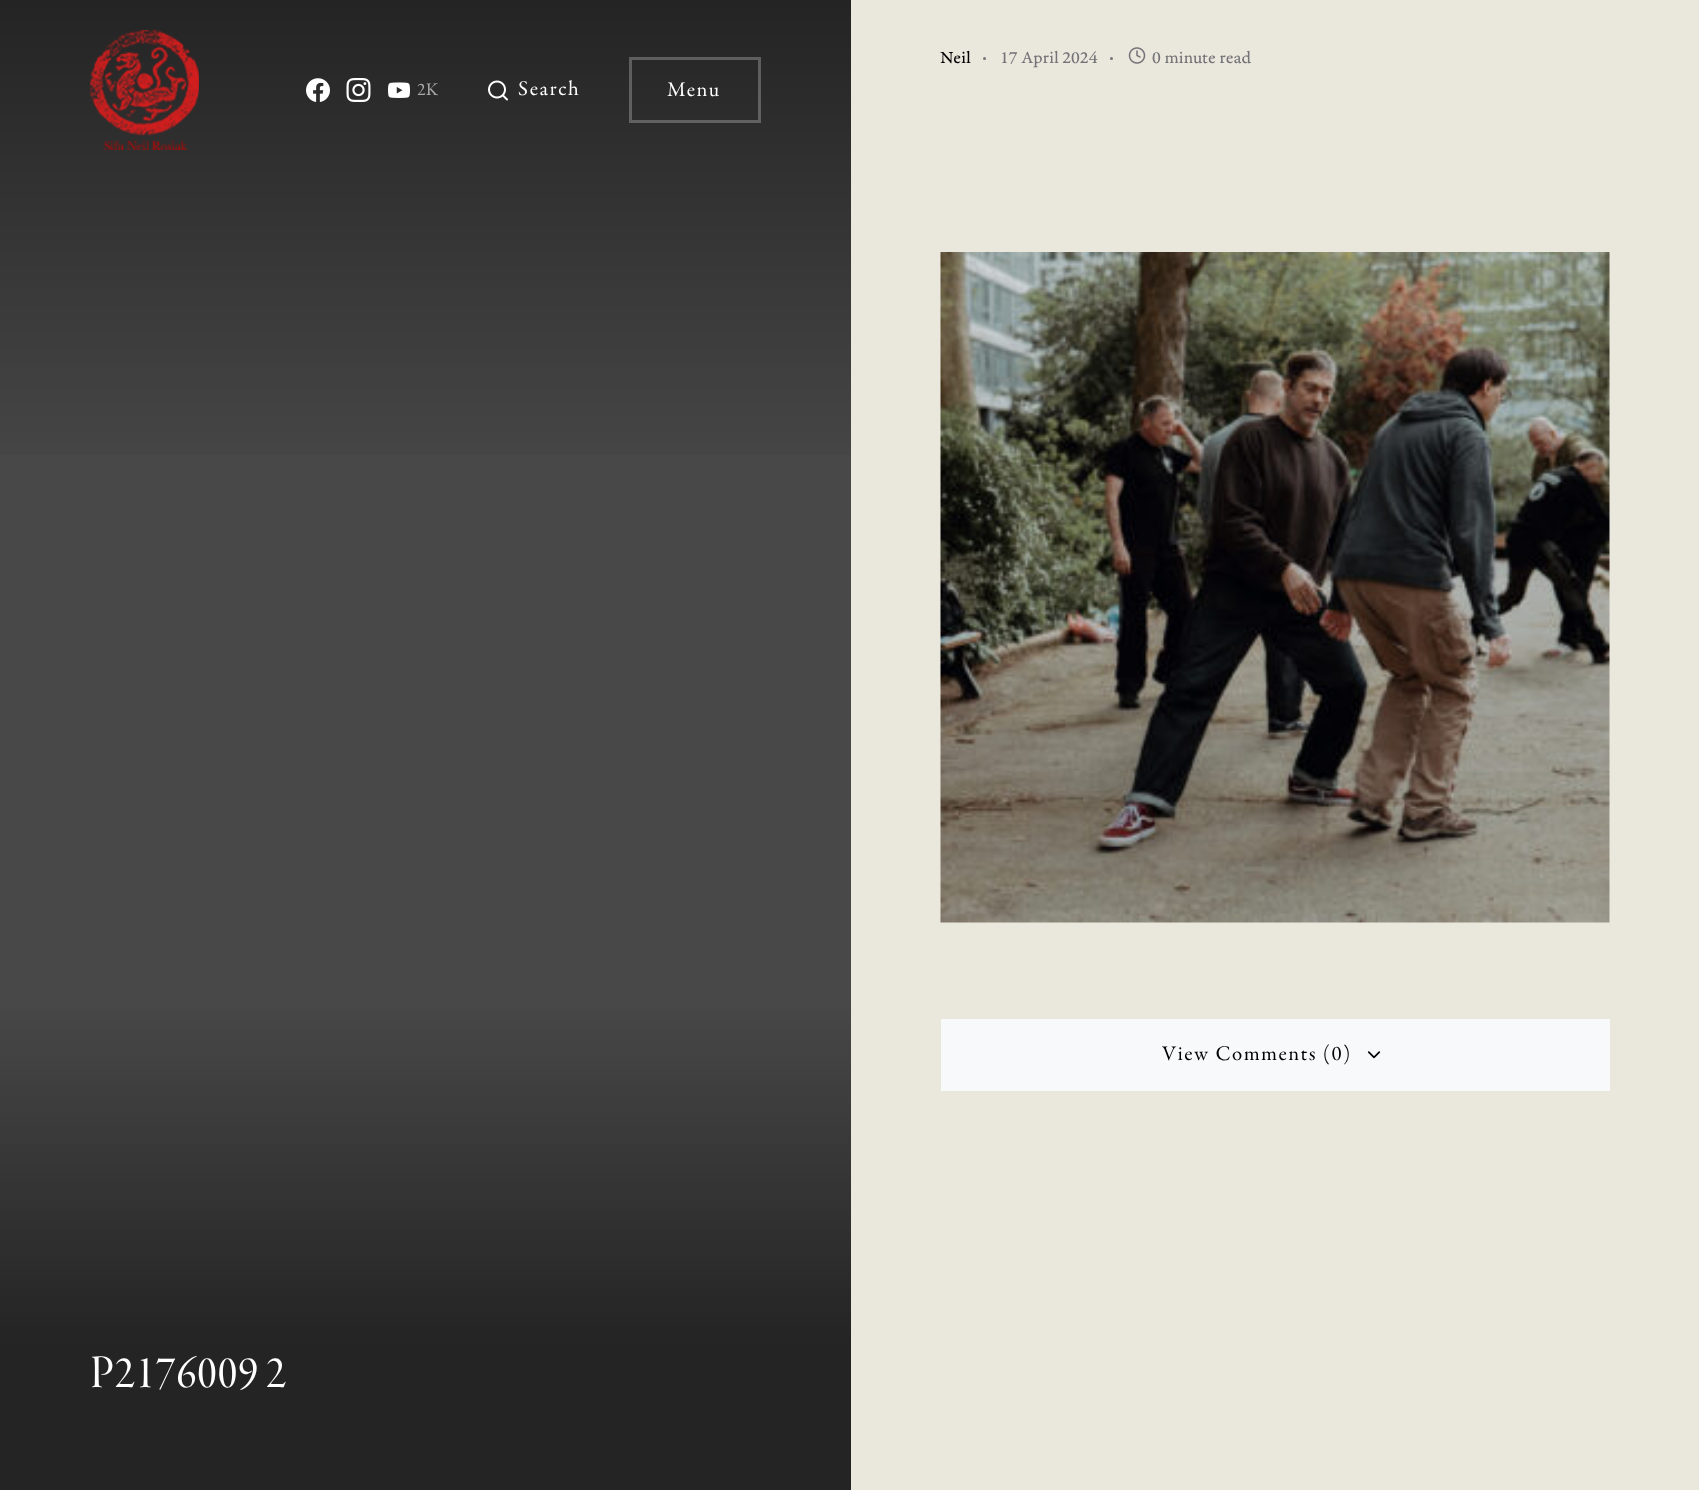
async function draw(canvas) {
	canvas.width = 1699;
	canvas.height = 1490;
	const c = canvas.getContext('2d');
	c.miterLimit = 4;
	c.fontKerning = 'normal';
	async function loadImage(src) {
		const img = new Image();
		img.src = src;
		await img.decode();
		return img;
	}
	let gradient;

	c.fillStyle = '#eae7dc';
	c.fillRect(0, 0, 1699, 1490);
	gradient = c.createLinearGradient(425, 0, 425, 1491);
	gradient.addColorStop(0.67, '#484848');
	gradient.addColorStop(0.9, '#242424');
	c.fillStyle = gradient;
	c.fillRect(0, 0, 851, 1490);
	gradient = c.createLinearGradient(425, 0, 425, 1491);
	gradient.addColorStop(0, '#00000080');
	gradient.addColorStop(0.33, '#00000000');
	c.fillStyle = gradient;
	c.fillRect(0, 0, 851, 455);
	c.drawImage(await loadImage('img1.png'), 90, 30, 109, 120);
	c.drawImage(await loadImage('img2.png'), 306, 78, 24, 24);
	c.drawImage(await loadImage('img3.png'), 346, 78, 25, 24);
	c.drawImage(await loadImage('img4.png'), 388, 82, 22, 16);
	c.font = '18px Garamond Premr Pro';
	c.fillStyle = '#aaa';
	c.fillText('2K', 417, 95);
	c.drawImage(await loadImage('img5.png'), 488, 80, 20, 21);
	c.letterSpacing = '1.6px';
	c.font = '21px Garamond Premr Pro';
	c.fillStyle = '#fff';
	c.fillText('Search', 518, 95);
	c.strokeStyle = '#ffffff40';
	c.lineWidth = 3;
	c.strokeRect(630.5, 58.5, 129, 63);
	c.fillText('Menu', 667, 96);
	c.letterSpacing = '0.5px';
	c.font = '48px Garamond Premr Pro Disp';
	c.fillText('P2176009 2', 90, 1387);
	c.letterSpacing = '0px';
	c.font = '18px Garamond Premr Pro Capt';
	c.fillStyle = '#000';
	c.fillText('Neil', 940, 63);
	c.fillStyle = '#737378';
	c.beginPath();
	c.arc(984.5, 58.5, 1.5, 0, 2 * Math.PI);
	c.fill();
	c.fillText('17 April 2024', 1000, 63);
	c.beginPath();
	c.arc(1111.5, 58.5, 1.5, 0, 2 * Math.PI);
	c.fill();
	c.drawImage(await loadImage('img6.png'), 1128, 47, 18, 17);
	c.fillText('0 minute read', 1152, 63);
	c.drawImage(await loadImage('img7.png'), 940, 252, 670, 671);
	c.fillStyle = '#f8f9fa';
	c.fillRect(941, 1019, 669, 72);
	c.letterSpacing = '1.6px';
	c.font = '21px Garamond Premr Pro';
	c.fillStyle = '#000';
	c.fillText('View Comments (0)', 1162, 1060);
	c.drawImage(await loadImage('img8.png'), 1367, 1051, 14, 8);
}

draw(document.querySelector('canvas'));
